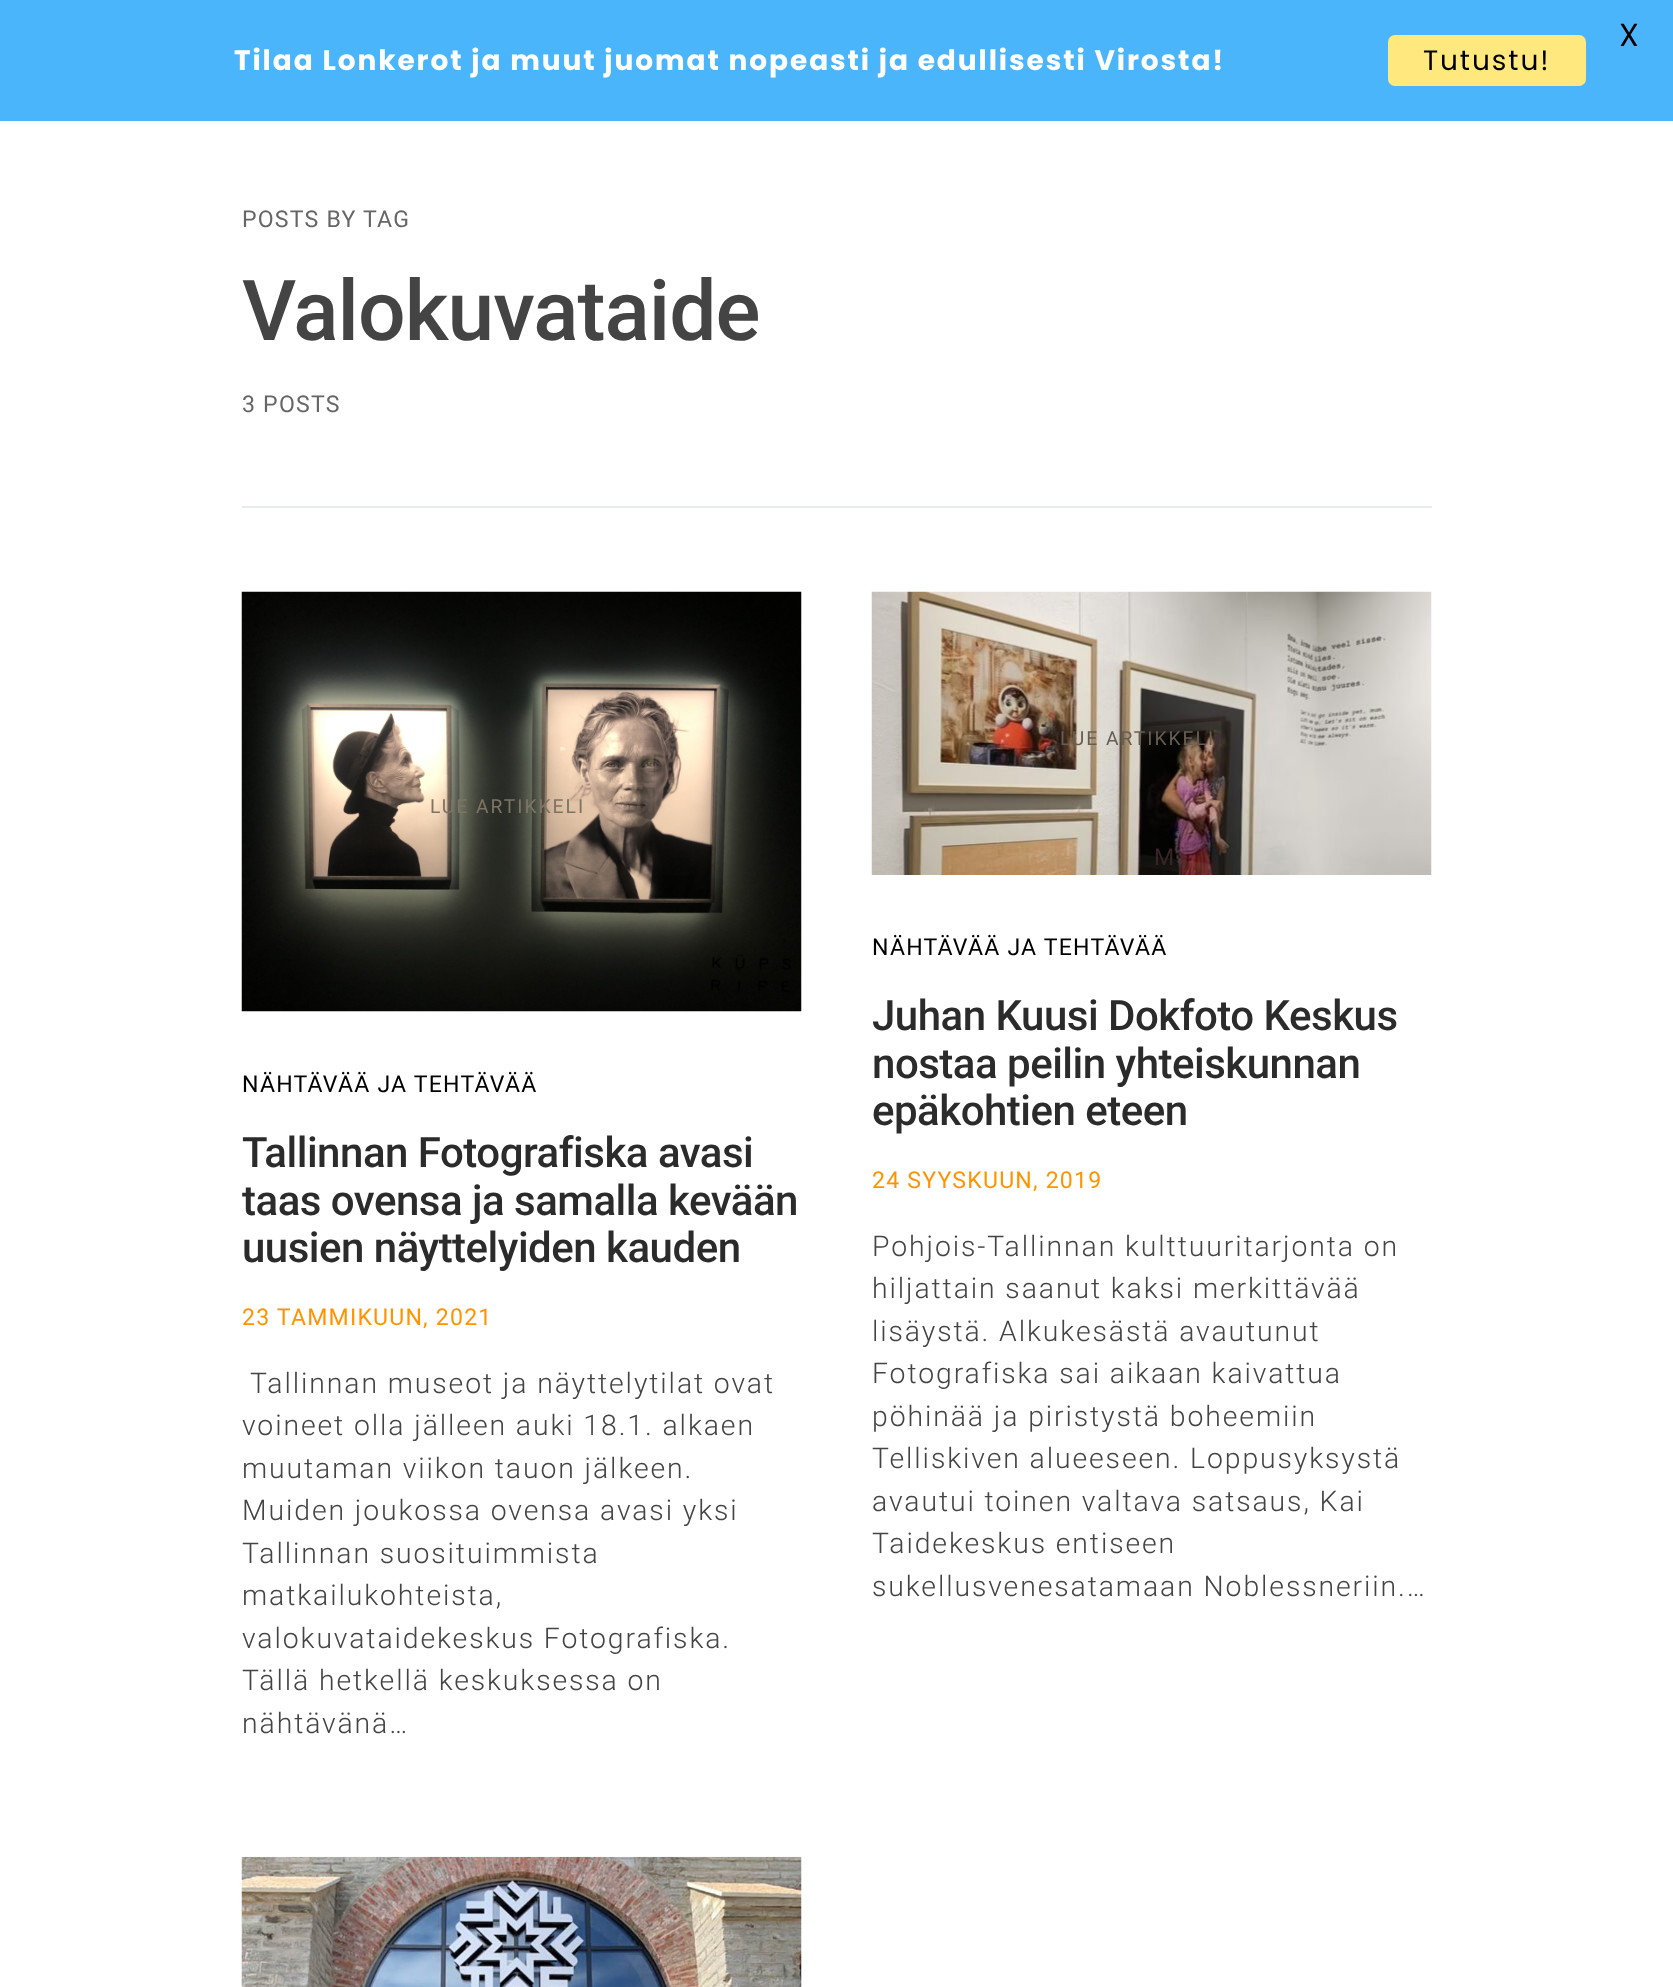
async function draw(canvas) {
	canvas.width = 1673;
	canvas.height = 1987;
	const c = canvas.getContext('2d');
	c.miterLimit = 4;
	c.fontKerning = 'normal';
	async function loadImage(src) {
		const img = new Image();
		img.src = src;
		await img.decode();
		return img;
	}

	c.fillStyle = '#fff';
	c.fillRect(0, 0, 1673, 1987);
	c.fillStyle = '#4bb5fc';
	c.fillRect(0, 0, 1673, 121);
	c.letterSpacing = '1.9px';
	c.font = '32px Poppins';
	c.fillStyle = '#000';
	c.fillText('X', 1619, 46);
	c.font = 'bold 28px Poppins';
	c.fillStyle = '#fff';
	c.fillText('Tilaa Lonkerot ja muut juomat nopeasti ja edullisesti Virosta!', 234, 70);
	c.fillStyle = '#ffe87e';
	c.beginPath();
	c.roundRect(1388, 35, 198, 51, 7);
	c.fill();
	c.font = '28px Poppins';
	c.fillStyle = '#000';
	c.fillText('Tutustu!', 1423, 70);
	c.letterSpacing = '1.2px';
	c.font = '23.1px Roboto';
	c.fillStyle = '#666';
	c.fillText('POSTS BY TAG', 242, 227);
	c.letterSpacing = '-1px';
	c.font = '500 84px Roboto';
	c.fillStyle = '#444';
	c.fillText('Valokuvataide', 242, 340);
	c.letterSpacing = '1.2px';
	c.font = '23.1px Roboto';
	c.fillStyle = '#666';
	c.fillText('3 POSTS', 242, 412);
	c.fillStyle = '#e9ecef';
	c.fillRect(242, 506, 1190, 2);
	c.drawImage(await loadImage('img1.png'), 241, 591, 561, 421);
	c.letterSpacing = '2px';
	c.font = '19.25px Roboto';
	c.fillStyle = '#7d7464';
	c.fillText('LUE ARTIKKELI', 430, 813);
	c.letterSpacing = '1.2px';
	c.font = '23.1px Roboto';
	c.fillStyle = '#000';
	c.fillText('NÄHTÄVÄÄ JA TEHTÄVÄÄ', 242, 1092);
	c.letterSpacing = '-0.5px';
	c.font = '500 42px Roboto';
	c.fillStyle = '#2b2b2b';
	for (const [text, x, y] of [
		['Tallinnan Fotografiska avasi', 242, 1167],
		['taas ovensa ja samalla kevään', 242, 1215],
		['uusien näyttelyiden kauden', 242, 1262],
	]) {
		c.fillText(text, x, y);
	}
	c.letterSpacing = '1.2px';
	c.font = '23.1px Roboto';
	c.fillStyle = '#ff9400';
	c.fillText('23 TAMMIKUUN, 2021', 242, 1325);
	c.letterSpacing = '1.9px';
	c.font = '300 28.4px Roboto';
	c.fillStyle = '#444';
	for (const [text, x, y] of [
		['Tallinnan museot ja näyttelytilat ovat', 250, 1393],
		['voineet olla jälleen auki 18.1. alkaen', 242, 1435],
		['muutaman viikon tauon jälkeen.', 242, 1478],
		['Muiden joukossa ovensa avasi yksi', 242, 1520],
		['Tallinnan suosituimmista', 242, 1563],
		['matkailukohteista,', 242, 1605],
		['valokuvataidekeskus Fotografiska.', 242, 1648],
		['Tällä hetkellä keskuksessa on', 242, 1690],
		['nähtävänä…', 242, 1733],
	]) {
		c.fillText(text, x, y);
	}
	c.drawImage(await loadImage('img2.png'), 871, 591, 561, 284);
	c.letterSpacing = '2px';
	c.font = '19.25px Roboto';
	c.fillStyle = '#675e53';
	c.fillText('LUE ARTIKKELI', 1060, 745);
	c.letterSpacing = '1.2px';
	c.font = '23.1px Roboto';
	c.fillStyle = '#392426';
	c.fillText('M', 1154, 865);
	c.fillStyle = '#000';
	c.fillText('NÄHTÄVÄÄ JA TEHTÄVÄÄ', 872, 955);
	c.letterSpacing = '-0.5px';
	c.font = '500 42px Roboto';
	c.fillStyle = '#2b2b2b';
	for (const [text, x, y] of [
		['Juhan Kuusi Dokfoto Keskus', 872, 1030],
		['nostaa peilin yhteiskunnan', 872, 1078],
		['epäkohtien eteen', 872, 1125],
	]) {
		c.fillText(text, x, y);
	}
	c.letterSpacing = '1.2px';
	c.font = '23.1px Roboto';
	c.fillStyle = '#ff9400';
	c.fillText('24 SYYSKUUN, 2019', 872, 1188);
	c.letterSpacing = '1.9px';
	c.font = '300 28.4px Roboto';
	c.fillStyle = '#444';
	for (const [text, x, y] of [
		['Pohjois-Tallinnan kulttuuritarjonta on', 872, 1256],
		['hiljattain saanut kaksi merkittävää', 872, 1298],
		['lisäystä. Alkukesästä avautunut', 872, 1341],
		['Fotografiska sai aikaan kaivattua', 872, 1383],
		['pöhinää ja piristystä boheemiin', 872, 1426],
		['Telliskiven alueeseen. Loppusyksystä', 872, 1468],
		['avautui toinen valtava satsaus, Kai', 872, 1511],
		['Taidekeskus entiseen', 872, 1553],
		['sukellusvenesatamaan Noblessneriin.…', 872, 1596],
	]) {
		c.fillText(text, x, y);
	}
	c.drawImage(await loadImage('img3.png'), 241, 1856, 561, 131);
}

draw(document.querySelector('canvas'));
